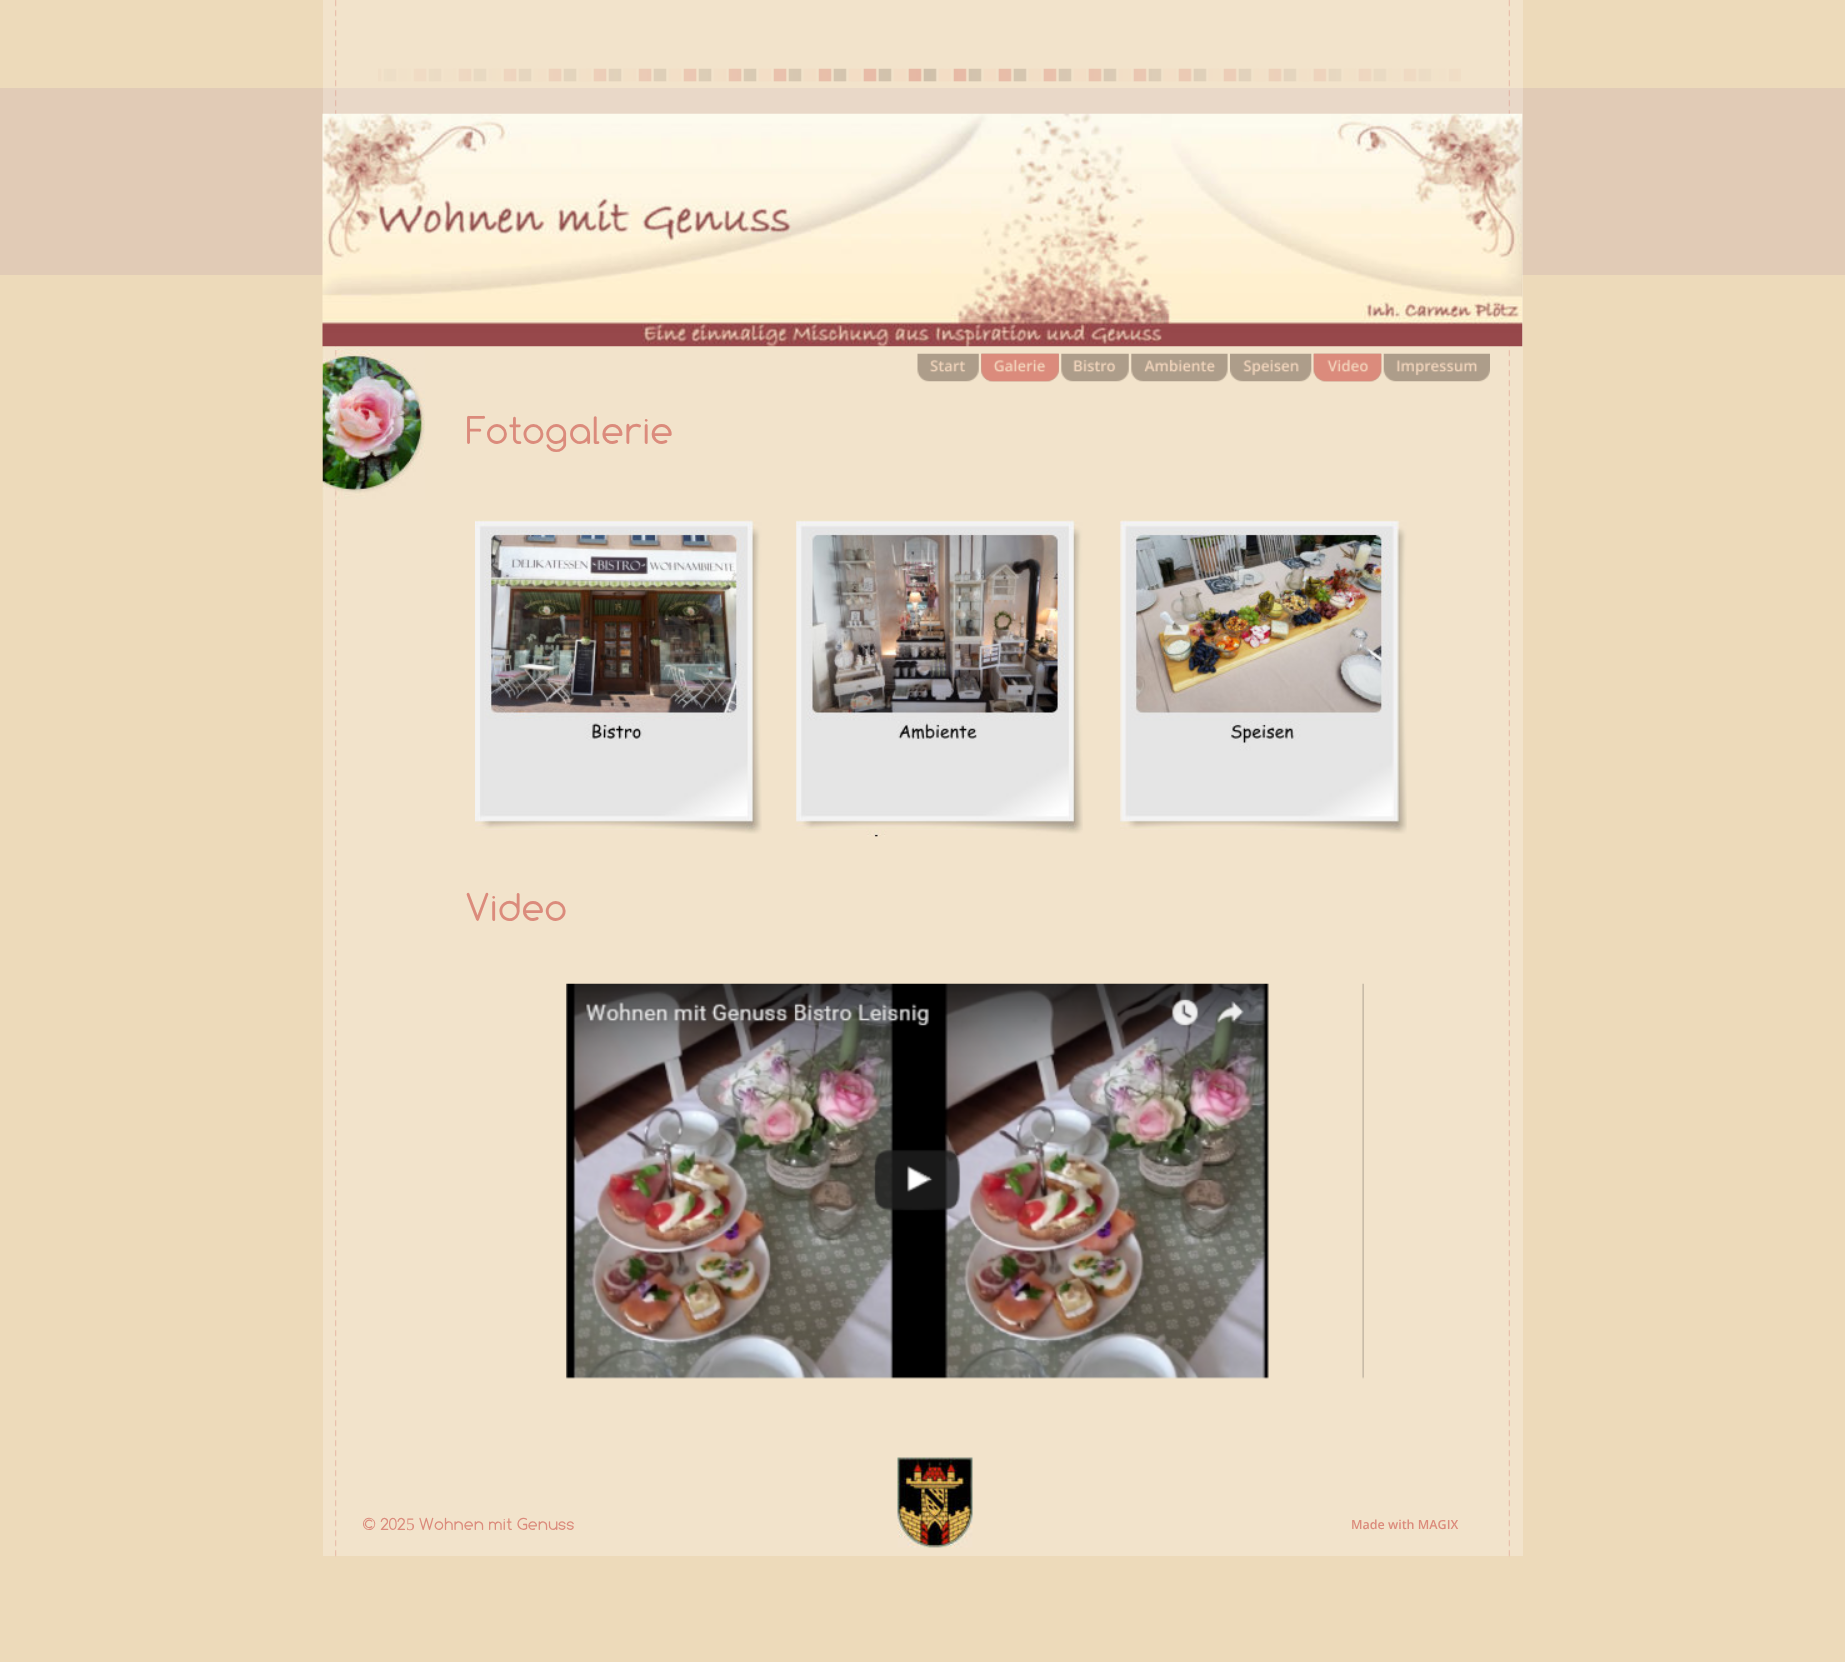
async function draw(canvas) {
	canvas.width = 1845;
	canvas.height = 1662;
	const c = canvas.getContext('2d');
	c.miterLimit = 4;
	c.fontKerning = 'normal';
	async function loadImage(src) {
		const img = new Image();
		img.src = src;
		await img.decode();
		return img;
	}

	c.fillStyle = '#eddaba';
	c.fillRect(0, 0, 1845, 1662);
	for (const [x, y, w, h, color] of [
		[323, 0, 1200, 1556, '#f2e3cb'],
		[0, 88, 1845, 187, '#e1cbb6'],
		[323, 88, 1200, 187, '#e9d8c8'],
	]) {
		c.fillStyle = color;
		c.fillRect(x, y, w, h);
	}
	c.drawImage(await loadImage('img1.png'), 335, 0, 2, 1557);
	c.drawImage(await loadImage('img2.png'), 378, 68, 1083, 14);
	c.drawImage(await loadImage('img3.png'), 1508, 0, 2, 1557);
	c.drawImage(await loadImage('img4.png'), 917, 353, 62, 29);
	c.drawImage(await loadImage('img5.png'), 981, 353, 78, 29);
	c.drawImage(await loadImage('img6.png'), 981, 353, 78, 29);
	c.drawImage(await loadImage('img7.png'), 1061, 353, 68, 29);
	c.drawImage(await loadImage('img8.png'), 1131, 353, 97, 29);
	c.drawImage(await loadImage('img9.png'), 1230, 353, 82, 29);
	c.drawImage(await loadImage('img10.png'), 1313, 353, 69, 29);
	c.drawImage(await loadImage('img11.png'), 1313, 353, 69, 29);
	c.drawImage(await loadImage('img12.png'), 1383, 353, 107, 29);
	c.drawImage(await loadImage('img13.png'), 322, 113, 1201, 234);
	c.drawImage(await loadImage('img14.png'), 322, 349, 103, 151);
	c.font = '40px Comfortaa';
	c.fillStyle = '#db8b7c';
	c.fillText('Fotogalerie', 466, 444);
	c.drawImage(await loadImage('img15.png'), 475, 520, 287, 314);
	c.drawImage(await loadImage('img16.png'), 796, 520, 287, 317);
	c.drawImage(await loadImage('img17.png'), 1120, 520, 287, 314);
	c.fillText('Video', 466, 921);
	c.drawImage(await loadImage('img18.png'), 566, 983, 798, 396);
	c.font = '17.5px Comfortaa';
	c.fillText('© 202', 362, 1530);
	c.font = '17.5px Liberation Serif';
	c.fillText('5', 406, 1530);
	c.font = '17.5px Comfortaa';
	c.fillText('Wohnen mit Genuss', 419, 1530);
	c.drawImage(await loadImage('img19.png'), 897, 1457, 76, 91);
	c.font = '600 12.5px Open Sans';
	c.fillText('Made with MAGIX', 1351, 1529);
}

draw(document.querySelector('canvas'));
